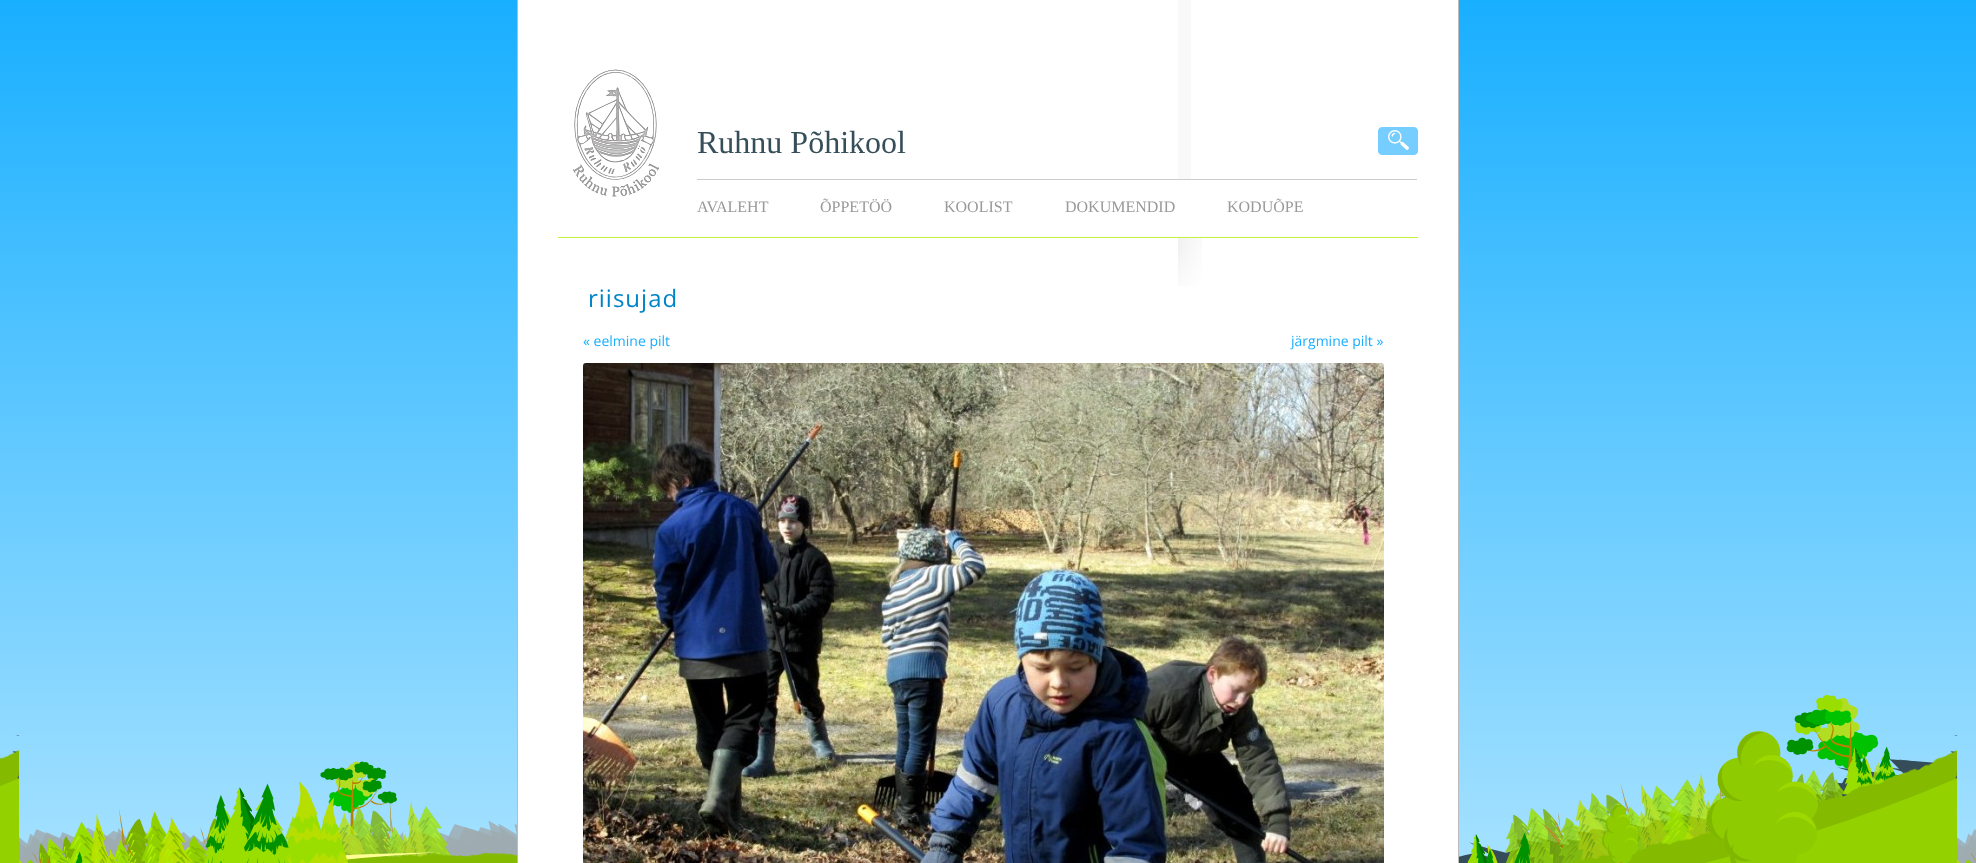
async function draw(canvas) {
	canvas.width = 1976;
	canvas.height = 863;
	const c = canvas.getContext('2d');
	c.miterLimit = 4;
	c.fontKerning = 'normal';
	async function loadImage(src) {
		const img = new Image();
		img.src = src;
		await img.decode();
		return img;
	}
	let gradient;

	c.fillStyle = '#fff';
	c.fillRect(0, 0, 1976, 863);
	gradient = c.createLinearGradient(988, 0, 988, 863);
	gradient.addColorStop(0, '#19afff');
	gradient.addColorStop(1, '#a5e1ff');
	c.fillStyle = gradient;
	c.fillRect(0, 0, 1976, 858);
	c.drawImage(await loadImage('img1.png'), 0, 695, 1976, 168);
	for (const [x, y, w, h, color] of [
		[518, 0, 940, 863, '#fff'],
		[1178, 0, 13, 179, '#f9f9f9'],
		[1458, 0, 1, 863, '#bbb'],
		[517, 0, 1, 863, '#bbb'],
	]) {
		c.fillStyle = color;
		c.fillRect(x, y, w, h);
	}
	c.drawImage(await loadImage('img2.png'), 572, 69, 88, 128);
	c.font = '32px Liberation Serif';
	c.fillStyle = '#364e59';
	c.fillText('Ruhnu Põhikool', 697, 153);
	c.fillStyle = '#75ceff';
	c.beginPath();
	c.roundRect(1378.5, 127.5, 39, 27, 3.5);
	c.fill();
	c.strokeStyle = '#75ceff';
	c.stroke();
	c.drawImage(await loadImage('img3.png'), 1388, 130, 21, 20);
	c.fillStyle = '#ccc';
	c.fillRect(697, 179, 720, 1);
	c.font = '16px Liberation Serif';
	c.fillStyle = '#999';
	for (const [text, x, y] of [
		['AVALEHT', 697, 212],
		['ÕPPETÖÖ', 820, 212],
		['KOOLIST', 944, 212],
		['DOKUMENDID', 1065, 212],
		['KODUÕPE', 1227, 212],
	]) {
		c.fillText(text, x, y);
	}
	c.fillStyle = '#c4f53d';
	c.fillRect(558, 237, 860, 1);
	c.drawImage(await loadImage('img4.png'), 1178, 238, 24, 48);
	c.letterSpacing = '1px';
	c.font = '24px Open Sans';
	c.fillStyle = '#0084c8';
	c.fillText('riisujad', 588, 307);
	c.letterSpacing = '0px';
	c.font = '14px Open Sans';
	c.fillStyle = '#19aeff';
	c.fillText('« eelmine pilt', 583, 346);
	c.fillText('järgmine pilt »', 1291, 346);
	c.drawImage(await loadImage('img5.png'), 583, 363, 801, 500);
}

draw(document.querySelector('canvas'));
